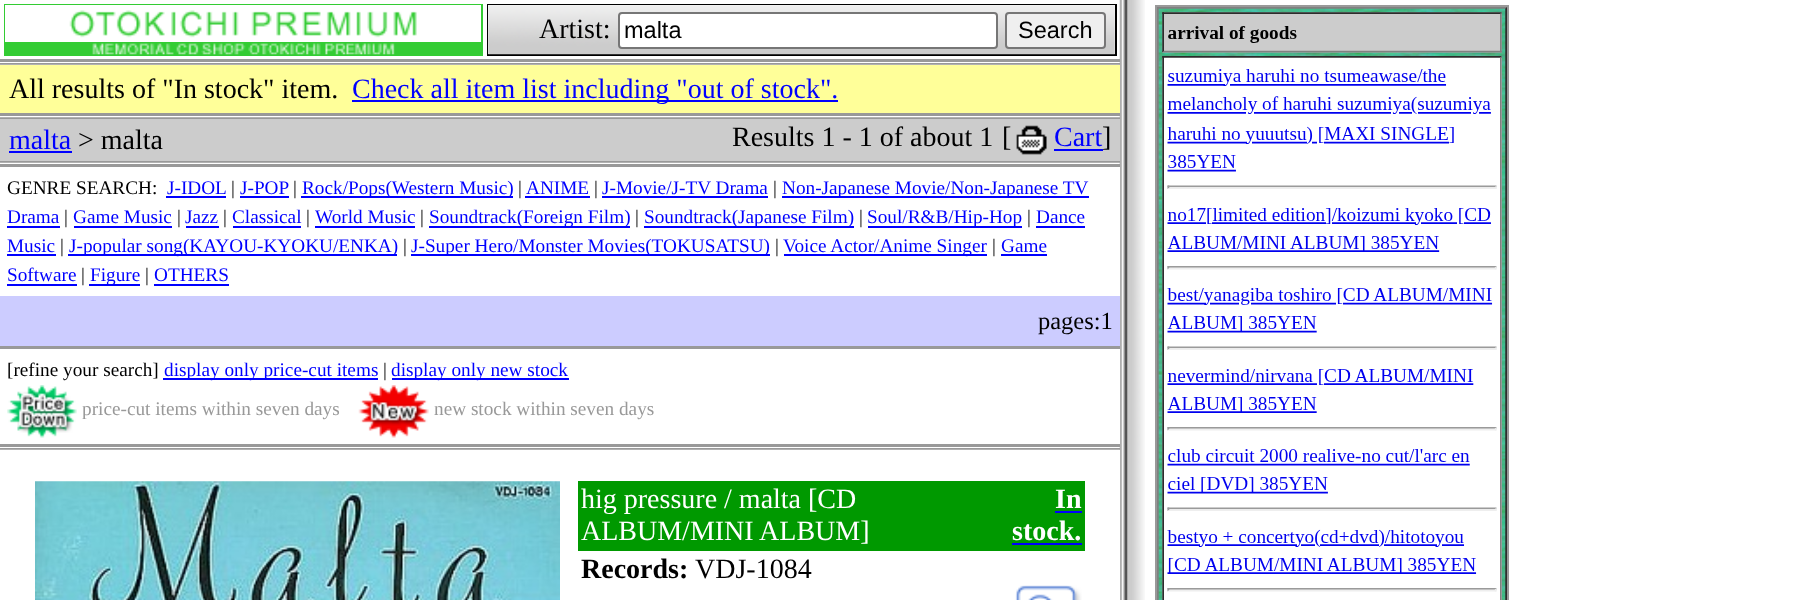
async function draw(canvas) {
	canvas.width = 1799;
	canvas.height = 600;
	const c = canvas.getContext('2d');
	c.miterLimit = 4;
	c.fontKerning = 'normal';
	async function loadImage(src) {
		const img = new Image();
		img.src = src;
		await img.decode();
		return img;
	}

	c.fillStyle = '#fff';
	c.fillRect(0, 0, 1799, 600);
	c.drawImage(await loadImage('img1.png'), 1119, 0, 26, 600);
	c.fillStyle = '#3c3';
	c.fillRect(4, 4, 479, 52);
	c.fillStyle = '#fff';
	c.fillRect(5, 5, 476, 37);
	c.drawImage(await loadImage('img2.png'), 69, 10, 348, 28);
	c.drawImage(await loadImage('img3.png'), 92, 43, 303, 12);
	c.fillStyle = '#000';
	c.fillRect(487, 4, 630, 52);
	c.fillStyle = '#fff';
	c.fillRect(488, 5, 627, 49);
	c.drawImage(await loadImage('img4.png'), 488, 5, 627, 50);
	c.font = '28px Liberation Serif';
	c.fillStyle = '#000';
	c.fillText('Artist:', 539, 38);
	c.fillStyle = '#fff';
	c.beginPath();
	c.roundRect(619, 13, 378, 35, 3);
	c.fill();
	c.strokeStyle = '#767676';
	c.lineWidth = 2;
	c.stroke();
	c.font = '23.5px Liberation Sans';
	c.fillStyle = '#000';
	c.fillText('malta', 624, 38);
	c.fillStyle = '#efefef';
	c.beginPath();
	c.roundRect(1006, 13, 99, 35, 3);
	c.fill();
	c.stroke();
	c.fillStyle = '#000';
	c.fillText('Search', 1018, 38);
	c.strokeStyle = '#999';
	c.strokeRect(1156, 6, 352, 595);
	c.drawImage(await loadImage('img5.png'), 1157, 7, 350, 593);
	c.fillStyle = '#999';
	c.fillRect(0, 59, 1120, 3);
	c.drawImage(await loadImage('img6.png'), 0, 63, 1120, 2);
	c.fillStyle = '#ff9';
	c.fillRect(0, 65, 1120, 48);
	c.font = '28px Liberation Serif';
	c.fillStyle = '#000';
	c.fillText('All results of "In stock" item.', 9, 98);
	c.fillStyle = '#00f';
	c.fillRect(352, 100, 486, 2);
	c.fillText('Check all item list including "out of stock".', 352, 98);
	c.fillStyle = '#999';
	c.fillRect(0, 113, 1120, 3);
	c.drawImage(await loadImage('img7.png'), 0, 117, 1120, 2);
	c.fillStyle = '#ccc';
	c.fillRect(0, 119, 1120, 42);
	c.fillStyle = '#00f';
	c.fillText('malta', 9, 149);
	c.fillRect(9, 151, 63, 2);
	c.fillStyle = '#000';
	for (const [text, x, y] of [
		['> malta', 78, 149],
		['Results 1 - 1 of about 1', 732, 146],
		['[', 1002, 146],
	]) {
		c.fillText(text, x, y);
	}
	c.drawImage(await loadImage('img8.png'), 1016, 125, 31, 30);
	c.fillStyle = '#00f';
	c.fillText('Cart', 1054, 146);
	c.fillRect(1054, 149, 49, 2);
	c.fillStyle = '#000';
	c.fillText(']', 1102, 146);
	c.drawImage(await loadImage('img6.png'), 0, 161, 1120, 2);
	c.fillStyle = '#999';
	c.fillRect(0, 164, 1120, 3);
	c.fillStyle = '#fff';
	c.fillRect(1119, 167, 1, 129);
	c.font = '19.25px Liberation Serif';
	c.fillStyle = '#000';
	c.fillText('GENRE SEARCH:', 7, 194);
	c.fillStyle = '#00f';
	c.fillText('J-IDOL', 167, 194);
	c.fillRect(166, 196, 60, 2);
	c.fillStyle = '#000';
	c.fillText('|', 231, 194);
	c.fillStyle = '#00f';
	c.fillText('J-POP', 240, 194);
	c.fillRect(240, 196, 49, 2);
	c.fillStyle = '#000';
	c.fillText('|', 293, 194);
	c.fillStyle = '#00f';
	c.fillRect(301, 196, 212, 2);
	c.fillText('Rock/Pops(Western Music)', 302, 194);
	c.fillStyle = '#000';
	c.fillText('|', 518, 194);
	c.fillStyle = '#00f';
	c.fillText('ANIME', 526, 194);
	c.fillRect(525, 196, 65, 2);
	c.fillStyle = '#000';
	c.fillText('|', 594, 194);
	c.fillStyle = '#00f';
	c.fillText('J-Movie/J-TV Drama', 602, 194);
	c.fillRect(602, 196, 166, 2);
	c.fillStyle = '#000';
	c.fillText('|', 773, 194);
	c.fillStyle = '#00f';
	c.fillRect(782, 196, 307, 2);
	c.fillText('Non-Japanese Movie/Non-Japanese TV', 782, 194);
	c.fillText('Drama', 7, 223);
	c.fillRect(7, 226, 53, 2);
	c.fillStyle = '#000';
	c.fillText('|', 64, 223);
	c.fillStyle = '#00f';
	c.fillText('Game Music', 73, 223);
	c.fillRect(74, 226, 98, 2);
	c.fillStyle = '#000';
	c.fillText('|', 177, 223);
	c.fillStyle = '#00f';
	c.fillText('Jazz', 185, 223);
	c.fillRect(186, 226, 33, 2);
	c.fillStyle = '#000';
	c.fillText('|', 223, 223);
	c.fillStyle = '#00f';
	c.fillText('Classical', 232, 223);
	c.fillRect(233, 226, 68, 2);
	c.fillStyle = '#000';
	c.fillText('|', 306, 223);
	c.fillStyle = '#00f';
	c.fillText('World Music', 315, 223);
	c.fillRect(315, 226, 100, 2);
	c.fillStyle = '#000';
	c.fillText('|', 420, 223);
	c.fillStyle = '#00f';
	c.fillRect(429, 226, 201, 2);
	c.fillText('Soundtrack(Foreign Film)', 429, 223);
	c.fillStyle = '#000';
	c.fillText('|', 635, 223);
	c.fillStyle = '#00f';
	c.fillRect(644, 226, 210, 2);
	c.fillText('Soundtrack(Japanese Film)', 644, 223);
	c.fillStyle = '#000';
	c.fillText('|', 859, 223);
	c.fillStyle = '#00f';
	c.fillRect(868, 226, 154, 2);
	c.fillText('Soul/R&B/Hip-Hop', 867, 223);
	c.fillStyle = '#000';
	c.fillText('|', 1027, 223);
	c.fillStyle = '#00f';
	c.fillText('Dance', 1036, 223);
	c.fillRect(1036, 226, 49, 2);
	c.fillText('Music', 7, 252);
	c.fillRect(7, 254, 49, 2);
	c.fillStyle = '#000';
	c.fillText('|', 60, 252);
	c.fillStyle = '#00f';
	c.fillRect(68, 254, 329, 2);
	c.fillText('J-popular song(KAYOU-KYOKU/ENKA)', 69, 252);
	c.fillStyle = '#000';
	c.fillText('|', 403, 252);
	c.fillStyle = '#00f';
	c.fillRect(411, 254, 359, 2);
	c.fillText('J-Super Hero/Monster Movies(TOKUSATSU)', 411, 252);
	c.fillStyle = '#000';
	c.fillText('|', 775, 252);
	c.fillStyle = '#00f';
	c.fillRect(784, 254, 203, 2);
	c.fillText('Voice Actor/Anime Singer', 783, 252);
	c.fillStyle = '#000';
	c.fillText('|', 992, 252);
	c.fillStyle = '#00f';
	c.fillText('Game', 1001, 252);
	c.fillRect(1001, 254, 46, 2);
	c.fillText('Software', 7, 281);
	c.fillRect(7, 284, 70, 2);
	c.fillStyle = '#000';
	c.fillText('|', 81, 281);
	c.fillStyle = '#00f';
	c.fillRect(89, 284, 51, 2);
	c.fillText('Figure', 90, 281);
	c.fillStyle = '#000';
	c.fillText('|', 145, 281);
	c.fillStyle = '#00f';
	c.fillText('OTHERS', 154, 281);
	c.fillRect(154, 284, 75, 2);
	c.fillStyle = '#ccf';
	c.fillRect(0, 296, 1120, 50);
	c.font = '24.5px Liberation Serif';
	c.fillStyle = '#000';
	c.fillText('pages:1', 1038, 329);
	c.fillStyle = '#999';
	c.fillRect(0, 346, 1120, 3);
	c.fillStyle = '#fff';
	c.fillRect(1119, 349, 1, 95);
	c.font = '19.25px Liberation Serif';
	c.fillStyle = '#000';
	c.fillText('[refine your search]', 7, 376);
	c.fillStyle = '#00f';
	c.fillRect(163, 378, 215, 2);
	c.fillText('display only price-cut items', 164, 376);
	c.fillStyle = '#000';
	c.fillText('|', 383, 376);
	c.fillStyle = '#00f';
	c.fillRect(392, 378, 177, 2);
	c.fillText('display only new stock', 391, 376);
	c.drawImage(await loadImage('img9.png'), 7, 385, 70, 53);
	c.fillStyle = '#999';
	c.fillText('price-cut items within seven days', 82, 415);
	c.drawImage(await loadImage('img10.png'), 358, 385, 71, 53);
	c.fillText('new stock within seven days', 434, 415);
	c.fillRect(0, 444, 1120, 3);
	c.drawImage(await loadImage('img6.png'), 0, 448, 1120, 2);
	c.fillStyle = '#fff';
	c.fillRect(1119, 450, 1, 150);
	c.drawImage(await loadImage('img11.png'), 35, 481, 525, 119);
	c.fillStyle = '#090';
	c.fillRect(578, 481, 507, 70);
	c.font = '28px Liberation Serif';
	c.fillStyle = '#fff';
	c.fillText('hig pressure / malta [CD', 581, 508);
	c.fillText('ALBUM/MINI ALBUM]', 581, 540);
	c.font = 'bold 28px Liberation Serif';
	c.fillText('In', 1055, 508);
	c.fillStyle = '#00f';
	c.fillRect(1055, 511, 27, 2);
	c.fillStyle = '#fff';
	c.fillText('stock.', 1012, 540);
	c.fillStyle = '#00f';
	c.fillRect(1012, 543, 70, 2);
	c.fillStyle = '#000';
	c.fillText('Records:', 581, 578);
	c.font = '28px Liberation Serif';
	c.fillText('VDJ-1084', 695, 578);
	c.drawImage(await loadImage('img12.png'), 1015, 585, 67, 15);
}

draw(document.querySelector('canvas'));
